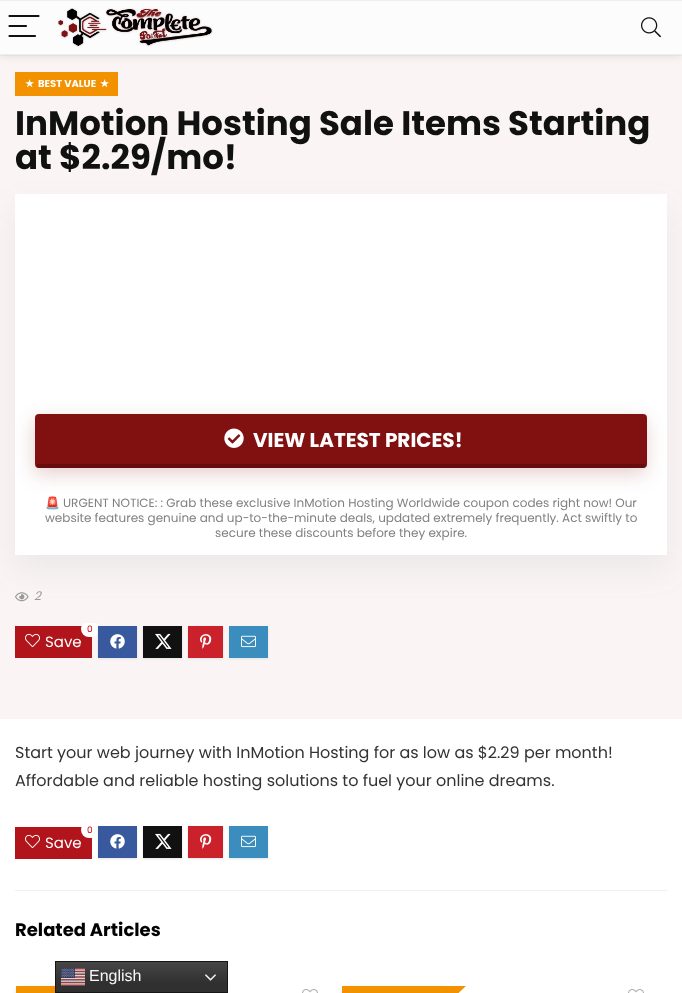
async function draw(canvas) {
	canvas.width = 682;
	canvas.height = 993;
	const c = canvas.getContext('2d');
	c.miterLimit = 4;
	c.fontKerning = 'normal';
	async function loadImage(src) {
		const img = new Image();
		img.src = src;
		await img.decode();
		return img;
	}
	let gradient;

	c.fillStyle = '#fff';
	c.fillRect(0, 0, 682, 993);
	c.strokeStyle = '#f3eded';
	c.strokeRect(-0.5, -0.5, 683, 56);
	c.fillStyle = '#faf4f4';
	c.fillRect(0, 56, 682, 663);
	c.fillStyle = '#0000001a';
	c.filter = 'blur(4px)';
	c.beginPath();
	c.rect(0, 1, 682, 55);
	c.fill();
	c.filter = 'none';
	for (const [x, y, w, h, color] of [
		[0, 1, 682, 53, '#fcfcfc'],
		[0, 0, 682, 1, '#eee'],
		[0, 54, 682, 1, '#eee'],
	]) {
		c.fillStyle = color;
		c.fillRect(x, y, w, h);
	}
	c.beginPath();
	c.moveTo(9.5, 16);
	c.lineTo(38.5, 16);
	c.moveTo(9.5, 26);
	c.lineTo(26, 26);
	c.moveTo(9.5, 36);
	c.lineTo(35, 36);
	c.strokeStyle = '#111';
	c.lineWidth = 2.2;
	c.lineCap = 'round';
	c.stroke();
	c.drawImage(await loadImage('img1.png'), 57, 8, 156, 39);
	c.drawImage(await loadImage('img2.png'), 641, 17, 20, 21);
	c.fillStyle = '#f39200';
	c.fillRect(15, 72, 103, 24);
	c.font = 'bold 10px DejaVu Sans';
	c.fillStyle = '#fff';
	c.fillText('★', 25, 87);
	c.font = 'bold 10px Poppins';
	c.fillText('BEST VALUE', 38, 87);
	c.font = 'bold 10px DejaVu Sans';
	c.fillText('★', 100, 87);
	c.font = 'bold 34px Poppins';
	c.fillStyle = '#111';
	c.fillText('InMotion Hosting Sale Items Starting', 15, 135);
	c.fillText('at $2.29/mo!', 15, 169);
	c.drawImage(await loadImage('img4.png'), 15, 592, 14, 10);
	c.fillStyle = '#777b921a';
	c.filter = 'blur(15px)';
	c.beginPath();
	c.rect(15, 209, 652, 361);
	c.fill();
	c.filter = 'none';
	c.fillStyle = '#fff';
	c.fillRect(15, 194, 652, 361);
	c.fillStyle = '#81111133';
	c.filter = 'blur(9.5px)';
	c.beginPath();
	c.roundRect(34, 420, 612, 54, 4);
	c.fill();
	c.filter = 'none';
	c.fillStyle = '#811111';
	c.beginPath();
	c.roundRect(35, 414, 612, 54, 4);
	c.fill();
	c.fillStyle = '#00000033';
	c.fillRect(37, 464, 608, 4);
	c.drawImage(await loadImage('img3.png'), 224, 428, 20, 20);
	c.font = 'bold 20px Poppins';
	c.fillStyle = '#fff';
	c.fillText('VIEW LATEST PRICES!', 253, 447);
	c.font = '12px Noto Color Emoji';
	c.fillStyle = '#808080';
	c.fillText('🚨', 45, 507);
	c.font = '12px Poppins';
	for (const [text, x, y] of [
		['URGENT NOTICE: : Grab these exclusive InMotion Hosting Worldwide coupon codes right now! Our', 63, 507],
		['website features genuine and up-to-the-minute deals, updated extremely frequently. Act swiftly to', 45, 522],
		['secure these discounts before they expire.', 215, 537],
	]) {
		c.fillText(text, x, y);
	}
	c.font = 'italic 12px Poppins';
	c.fillStyle = '#999';
	c.fillText('2', 34, 600);
	c.fillStyle = '#b1141a';
	c.fillRect(15, 626, 77, 32);
	c.save();
	c.beginPath();
	c.rect(15, 623, 652, 41);
	c.clip();
	c.fillStyle = '#fff';
	c.beginPath();
	c.roundRect(81, 621, 18, 16, 8);
	c.fill();
	c.restore();
	c.font = '9px Poppins';
	c.fillStyle = '#c00';
	c.fillText('0', 87, 632);
	c.drawImage(await loadImage('img5.png'), 25, 633, 15, 14);
	c.font = '15px Poppins';
	c.fillStyle = '#fff';
	c.fillText('Save', 45, 647);
	c.fillStyle = '#e4e4e4';
	c.filter = 'blur(1px)';
	c.beginPath();
	c.rect(98, 627, 39, 32);
	c.fill();
	c.filter = 'none';
	c.fillStyle = '#39599f';
	c.fillRect(98, 626, 39, 32);
	c.drawImage(await loadImage('img6.png'), 110, 634, 15, 15);
	c.fillStyle = '#e4e4e4';
	c.filter = 'blur(1px)';
	c.beginPath();
	c.rect(143, 627, 39, 32);
	c.fill();
	c.filter = 'none';
	c.fillStyle = '#111';
	c.fillRect(143, 626, 39, 32);
	c.drawImage(await loadImage('img7.png'), 155, 633, 17, 16);
	c.fillStyle = '#e4e4e4';
	c.filter = 'blur(1px)';
	c.beginPath();
	c.rect(188, 627, 35, 32);
	c.fill();
	c.filter = 'none';
	c.fillStyle = '#ca212a';
	c.fillRect(188, 626, 35, 32);
	c.drawImage(await loadImage('img8.png'), 200, 634, 12, 15);
	c.fillStyle = '#e4e4e4';
	c.filter = 'blur(1px)';
	c.beginPath();
	c.rect(229, 627, 39, 32);
	c.fill();
	c.filter = 'none';
	c.fillStyle = '#3b8dbd';
	c.fillRect(229, 626, 39, 32);
	c.drawImage(await loadImage('img9.png'), 241, 635, 15, 13);
	c.font = '16px Poppins';
	c.fillStyle = '#333';
	c.fillText('Start your web journey with InMotion Hosting for as low as $2.29 per month!', 15, 758);
	c.fillText('Affordable and reliable hosting solutions to fuel your online dreams.', 15, 786);
	c.fillStyle = '#b1141a';
	c.fillRect(15, 827, 77, 32);
	c.fillStyle = '#fff';
	c.beginPath();
	c.roundRect(81, 822, 18, 16, 8);
	c.fill();
	c.font = '9px Poppins';
	c.fillStyle = '#c00';
	c.fillText('0', 87, 833);
	c.drawImage(await loadImage('img5.png'), 25, 834, 15, 14);
	c.font = '15px Poppins';
	c.fillStyle = '#fff';
	c.fillText('Save', 45, 848);
	c.fillStyle = '#e4e4e4';
	c.filter = 'blur(1px)';
	c.beginPath();
	c.rect(98, 827, 39, 32);
	c.fill();
	c.filter = 'none';
	c.fillStyle = '#39599f';
	c.fillRect(98, 826, 39, 32);
	c.drawImage(await loadImage('img6.png'), 110, 834, 15, 15);
	c.fillStyle = '#e4e4e4';
	c.filter = 'blur(1px)';
	c.beginPath();
	c.rect(143, 827, 39, 32);
	c.fill();
	c.filter = 'none';
	c.fillStyle = '#111';
	c.fillRect(143, 826, 39, 32);
	c.drawImage(await loadImage('img7.png'), 155, 833, 17, 16);
	c.fillStyle = '#e4e4e4';
	c.filter = 'blur(1px)';
	c.beginPath();
	c.rect(188, 827, 35, 32);
	c.fill();
	c.filter = 'none';
	c.fillStyle = '#ca212a';
	c.fillRect(188, 826, 35, 32);
	c.drawImage(await loadImage('img8.png'), 200, 834, 12, 15);
	c.fillStyle = '#e4e4e4';
	c.filter = 'blur(1px)';
	c.beginPath();
	c.rect(229, 827, 39, 32);
	c.fill();
	c.filter = 'none';
	c.fillStyle = '#3b8dbd';
	c.fillRect(229, 826, 39, 32);
	c.drawImage(await loadImage('img9.png'), 241, 835, 15, 13);
	c.fillStyle = '#f0f0f0';
	c.fillRect(15, 890, 652, 1);
	c.font = 'bold 18px Poppins';
	c.fillStyle = '#000';
	c.fillText('Related Articles', 15, 936);
	c.filter = 'blur(5px)';
	c.beginPath();
	c.rect(21, 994, 99, 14);
	c.fill();
	c.filter = 'none';
	c.fillStyle = '#f39200';
	c.fillRect(16, 986, 39, 7);
	c.drawImage(await loadImage('img10.png'), 302, 989, 16, 4);
	c.fillStyle = '#000';
	c.filter = 'blur(5px)';
	c.beginPath();
	c.rect(347, 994, 99, 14);
	c.fill();
	c.filter = 'none';
	c.fillStyle = '#f39200';
	c.fillRect(342, 986, 109, 7);
	c.beginPath();
	c.moveTo(451, 986);
	c.lineTo(466, 986);
	c.lineTo(451, 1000);
	c.closePath();
	c.fill();
	c.drawImage(await loadImage('img10.png'), 628, 989, 16, 4);
	gradient = c.createLinearGradient(142, 961, 142, 993);
	gradient.addColorStop(0, '#474747');
	gradient.addColorStop(0.7, '#303030');
	c.fillStyle = gradient;
	c.fillRect(56, 962, 171, 30);
	c.strokeStyle = '#161616';
	c.lineWidth = 1;
	c.strokeRect(55.5, 961.5, 172, 31);
	c.drawImage(await loadImage('img11.png'), 61, 968, 24, 18);
	c.font = '16px Liberation Sans';
	c.fillStyle = '#f7f7f7';
	c.fillText('English', 89, 981);
	c.drawImage(await loadImage('img12.png'), 205, 974, 11, 7);
}

draw(document.querySelector('canvas'));
